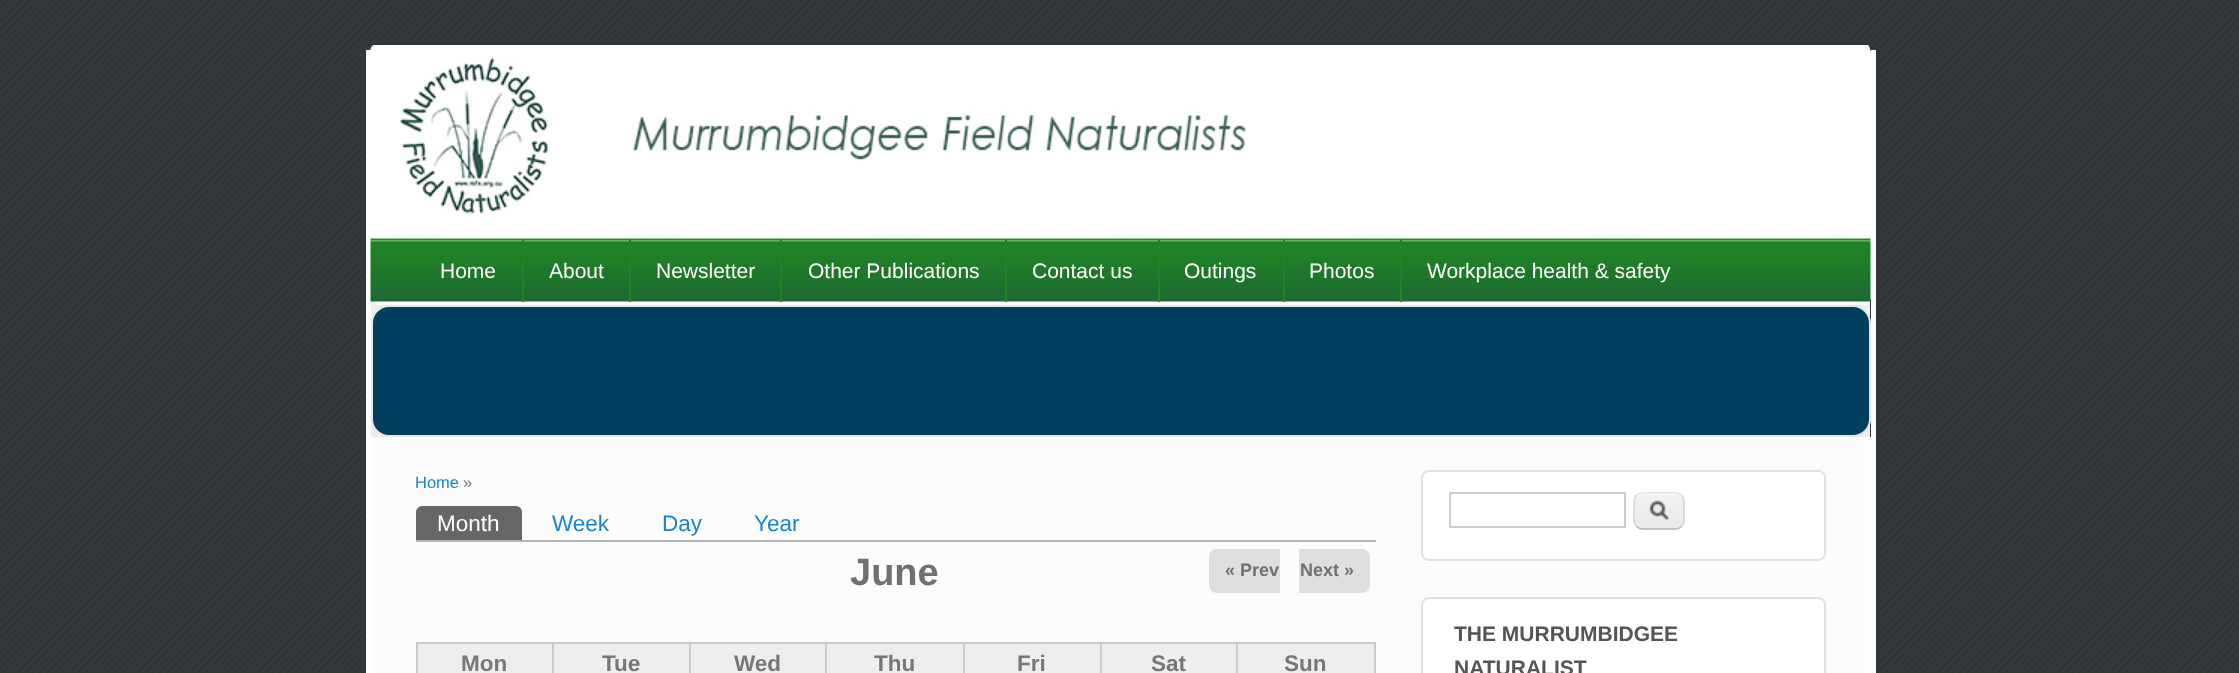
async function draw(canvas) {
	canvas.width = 2239;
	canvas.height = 673;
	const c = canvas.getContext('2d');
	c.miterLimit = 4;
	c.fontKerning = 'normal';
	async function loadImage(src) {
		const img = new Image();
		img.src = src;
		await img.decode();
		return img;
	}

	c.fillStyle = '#33383a';
	c.fillRect(0, 0, 2239, 673);
	c.drawImage(await loadImage('img1.png'), 0, 0, 2239, 673);
	c.fillStyle = '#eee';
	c.beginPath();
	c.moveTo(374, 45);
	c.lineTo(1868, 45);
	c.bezierCurveTo(1869, 45, 1870, 48, 1870, 52);
	c.lineTo(1870, 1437);
	c.bezierCurveTo(1870, 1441, 1869, 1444, 1868, 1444);
	c.lineTo(374, 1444);
	c.bezierCurveTo(372, 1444, 370, 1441, 370, 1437);
	c.lineTo(370, 52);
	c.bezierCurveTo(370, 48, 372, 45, 374, 45);
	c.closePath();
	c.fill();
	c.fillStyle = '#fff';
	c.fillRect(1871, 50, 5, 623);
	c.fillRect(366, 50, 5, 623);
	c.beginPath();
	c.roundRect(371, 45, 1500, 260, 8);
	c.fill();
	c.drawImage(await loadImage('img2.png'), 400, 58, 847, 156);
	c.drawImage(await loadImage('img3.png'), 370, 238, 1501, 64);
	c.fillStyle = '#1f8424';
	c.fillRect(522, 239, 2, 63);
	c.font = '21px Liberation Sans';
	c.fillStyle = '#fff';
	c.fillText('Home', 440, 278);
	c.fillStyle = '#1f8424';
	c.fillRect(629, 239, 2, 63);
	c.fillStyle = '#fff';
	c.fillText('About', 549, 278);
	c.fillStyle = '#1f8424';
	c.fillRect(780, 239, 2, 63);
	c.fillStyle = '#fff';
	c.fillText('Newsletter', 656, 278);
	c.fillStyle = '#1f8424';
	c.fillRect(1005, 239, 2, 63);
	c.fillStyle = '#fff';
	c.fillText('Other Publications', 808, 278);
	c.fillStyle = '#1f8424';
	c.fillRect(1158, 239, 2, 63);
	c.fillStyle = '#fff';
	c.fillText('Contact us', 1032, 278);
	c.fillStyle = '#1f8424';
	c.fillRect(1283, 239, 2, 63);
	c.fillStyle = '#fff';
	c.fillText('Outings', 1184, 278);
	c.fillStyle = '#1f8424';
	c.fillRect(1400, 239, 2, 63);
	c.fillStyle = '#fff';
	c.fillText('Photos', 1309, 278);
	c.fillText('Workplace health & safety', 1427, 278);
	c.fillStyle = '#003f5e';
	c.beginPath();
	c.roundRect(372, 306, 1498, 130, 17);
	c.fill();
	c.strokeStyle = '#e6e6e6';
	c.lineWidth = 2;
	c.stroke();
	c.fillStyle = '#fcfcfc';
	c.fillRect(371, 437, 1500, 236);
	c.font = '16.5px Liberation Sans';
	c.fillStyle = '#1982d1';
	c.fillText('Home', 415, 488);
	c.fillStyle = '#726f6f';
	c.fillText('»', 463, 488);
	c.fillStyle = '#b7b7b7';
	c.fillRect(416, 540, 960, 2);
	c.fillStyle = '#666';
	c.beginPath();
	c.roundRect(416, 506, 106, 34, [6, 6, 0, 0]);
	c.fill();
	c.font = '22.5px Liberation Sans';
	c.fillStyle = '#fff';
	c.fillText('Month', 437, 531);
	c.fillStyle = '#1982d1';
	for (const [text, x, y] of [
		['Week', 552, 531],
		['Day', 662, 531],
		['Year', 754, 531],
	]) {
		c.fillText(text, x, y);
	}
	c.font = 'bold 38px Liberation Sans';
	c.fillStyle = '#726f6f';
	c.fillText('June', 850, 585);
	c.fillStyle = '#dfdfdf';
	c.beginPath();
	c.roundRect(1209, 549, 71, 44, [8, 0, 0, 8]);
	c.fill();
	c.font = 'bold 18px Liberation Sans';
	c.fillStyle = '#726f6f';
	c.fillText('« Prev', 1225, 576);
	c.fillStyle = '#dfdfdf';
	c.beginPath();
	c.roundRect(1299, 549, 71, 44, [0, 8, 8, 0]);
	c.fill();
	c.fillStyle = '#726f6f';
	c.fillText('Next »', 1300, 576);
	for (const [x, y, w, h, color] of [
		[418, 644, 134, 29, '#eee'],
		[1236, 642, 140, 2, '#ccc'],
		[1236, 642, 2, 31, '#ccc'],
		[1100, 642, 138, 2, '#ccc'],
		[1100, 642, 2, 31, '#ccc'],
		[963, 642, 138, 2, '#ccc'],
		[963, 642, 2, 31, '#ccc'],
		[825, 642, 140, 2, '#ccc'],
		[825, 642, 2, 31, '#ccc'],
		[689, 642, 138, 2, '#ccc'],
		[689, 642, 2, 31, '#ccc'],
		[552, 642, 138, 2, '#ccc'],
		[552, 642, 2, 31, '#ccc'],
		[416, 642, 138, 2, '#ccc'],
		[416, 642, 2, 31, '#ccc'],
	]) {
		c.fillStyle = color;
		c.fillRect(x, y, w, h);
	}
	c.font = 'bold 22.5px Liberation Sans';
	c.fillStyle = '#777';
	c.fillText('Mon', 461, 671);
	c.fillStyle = '#eee';
	c.fillRect(554, 644, 135, 29);
	c.fillStyle = '#777';
	c.fillText('Tue', 602, 671);
	c.fillStyle = '#eee';
	c.fillRect(691, 644, 134, 29);
	c.fillStyle = '#777';
	c.fillText('Wed', 734, 671);
	c.fillStyle = '#eee';
	c.fillRect(827, 644, 136, 29);
	c.fillStyle = '#777';
	c.fillText('Thu', 874, 671);
	c.fillStyle = '#eee';
	c.fillRect(965, 644, 135, 29);
	c.fillStyle = '#777';
	c.fillText('Fri', 1017, 671);
	c.fillStyle = '#eee';
	c.fillRect(1102, 644, 134, 29);
	c.fillStyle = '#777';
	c.fillText('Sat', 1151, 671);
	c.fillStyle = '#eee';
	c.fillRect(1238, 644, 136, 29);
	c.fillStyle = '#ccc';
	c.fillRect(1374, 642, 2, 31);
	c.fillStyle = '#777';
	c.fillText('Sun', 1284, 671);
	c.fillStyle = '#fff';
	c.beginPath();
	c.roundRect(1422, 471, 403, 89, 7);
	c.fill();
	c.strokeStyle = '#e2e2e2';
	c.stroke();
	c.strokeStyle = '#ccc';
	c.strokeRect(1450, 493, 175, 34);
	c.drawImage(await loadImage('img4.png'), 1633, 493, 52, 37);
	c.beginPath();
	c.moveTo(1642, 495);
	c.lineTo(1676, 495);
	c.bezierCurveTo(1680, 495, 1683, 498, 1683, 502);
	c.bezierCurveTo(1683, 498, 1679, 494, 1675, 494);
	c.lineTo(1643, 494);
	c.bezierCurveTo(1639, 494, 1635, 498, 1635, 502);
	c.bezierCurveTo(1635, 498, 1638, 495, 1642, 495);
	c.closePath();
	c.fill();
	c.beginPath();
	c.moveTo(1636.5, 495);
	c.bezierCurveTo(1638, 493.5, 1640.5, 493, 1642.5, 493);
	c.lineTo(1675.5, 493);
	c.bezierCurveTo(1677.5, 493, 1680, 493.5, 1681.5, 495);
	c.strokeStyle = '#e4e4e4';
	c.lineWidth = 1.5;
	c.stroke();
	c.beginPath();
	c.moveTo(1681.5, 495);
	c.bezierCurveTo(1683, 496.5, 1684, 499, 1684, 501);
	c.lineTo(1684, 520.5);
	c.bezierCurveTo(1684, 522.5, 1683, 525, 1681.5, 526.5);
	c.strokeStyle = '#d2d2d2';
	c.stroke();
	c.beginPath();
	c.moveTo(1681.5, 526.5);
	c.bezierCurveTo(1680, 528, 1677.5, 529, 1675.5, 529);
	c.lineTo(1642.5, 529);
	c.bezierCurveTo(1640.5, 529, 1638, 528, 1636.5, 526.5);
	c.strokeStyle = '#b4b4b4';
	c.stroke();
	c.beginPath();
	c.moveTo(1636.5, 526.5);
	c.bezierCurveTo(1635, 525, 1634, 522.5, 1634, 520.5);
	c.lineTo(1634, 501);
	c.bezierCurveTo(1634, 499, 1635, 496.5, 1636.5, 495);
	c.strokeStyle = '#d2d2d2';
	c.stroke();
	c.beginPath();
	c.roundRect(1422, 598, 403, 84, 7);
	c.fill();
	c.strokeStyle = '#e2e2e2';
	c.lineWidth = 2;
	c.stroke();
	c.font = 'bold 21px Liberation Sans';
	c.fillStyle = '#555';
	c.fillText('THE MURRUMBIDGEE', 1454, 641);
	c.fillText('NATURALIST', 1454, 675);
}

draw(document.querySelector('canvas'));
